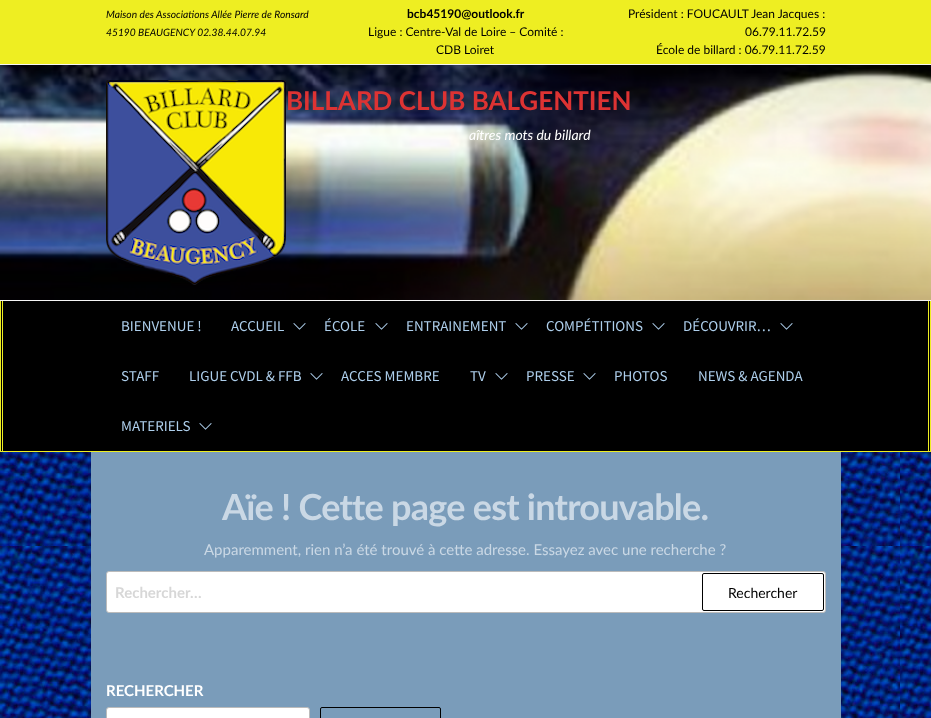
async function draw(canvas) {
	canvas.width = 931;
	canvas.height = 718;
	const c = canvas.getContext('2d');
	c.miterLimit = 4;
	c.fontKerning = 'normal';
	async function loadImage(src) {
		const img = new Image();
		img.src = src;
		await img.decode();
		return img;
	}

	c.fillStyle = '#fff';
	c.fillRect(0, 0, 931, 718);
	c.drawImage(await loadImage('img1.png'), 0, 452, 931, 266);
	c.fillStyle = '#ee2';
	c.fillRect(0, 0, 931, 64);
	c.fillStyle = '#f6f6f6';
	c.fillRect(0, 64, 931, 1);
	c.font = 'italic 10.25px Lato';
	c.fillStyle = '#000';
	c.fillText('Maison des Associations Allée Pierre de Ronsard', 106, 18);
	c.fillText('45190 BEAUGENCY 02.38.44.07.94', 106, 36);
	c.font = 'bold 12px Lato';
	c.fillText('bcb45190@outlook.fr', 407, 18);
	c.font = '12px Lato';
	for (const [text, x, y] of [
		['Ligue : Centre-Val de Loire – Comité :', 368, 36],
		['CDB Loiret', 436, 54],
		['Président : FOUCAULT Jean Jacques :', 628, 18],
		['06.79.11.72.59', 745, 36],
		['École de billard : 06.79.11.72.59', 656, 54],
	]) {
		c.fillText(text, x, y);
	}
	c.drawImage(await loadImage('img2.png'), 0, 65, 931, 235);
	c.fillStyle = '#f6f6f6';
	c.fillRect(0, 300, 931, 1);
	c.drawImage(await loadImage('img3.png'), 106, 80, 180, 205);
	c.font = 'bold 26px Lato';
	c.fillStyle = '#d33';
	c.fillText('BILLARD CLUB BALGENTIEN', 286, 110);
	c.font = 'italic 14px Lato';
	c.fillStyle = '#fff';
	c.fillText('aîtres mots du billard', 469, 140);
	for (const [x, y, w, h, color] of [
		[1, 301, 929, 150, '#000'],
		[928, 301, 1, 151, '#ee2'],
		[930, 301, 1, 151, '#ee2'],
		[0, 451, 931, 1, '#ee2'],
		[0, 301, 1, 151, '#ee2'],
		[2, 301, 1, 151, '#ee2'],
	]) {
		c.fillStyle = color;
		c.fillRect(x, y, w, h);
	}
	c.font = '15px Source Sans Pro';
	c.fillStyle = '#aecfec';
	c.fillText('BIENVENUE !', 121, 331);
	c.fillText('ACCUEIL', 231, 331);
	c.drawImage(await loadImage('img4.png'), 293, 323, 13, 7);
	c.fillText('ÉCOLE', 324, 331);
	c.drawImage(await loadImage('img4.png'), 375, 323, 13, 7);
	c.fillText('ENTRAINEMENT', 406, 331);
	c.drawImage(await loadImage('img4.png'), 515, 323, 13, 7);
	c.fillText('COMPÉTITIONS', 546, 331);
	c.drawImage(await loadImage('img4.png'), 652, 323, 13, 7);
	c.fillText('DÉCOUVRIR…', 683, 331);
	c.drawImage(await loadImage('img4.png'), 780, 323, 13, 7);
	c.fillText('STAFF', 121, 381);
	c.fillText('LIGUE CVDL & FFB', 189, 381);
	c.drawImage(await loadImage('img4.png'), 310, 373, 13, 7);
	c.fillText('ACCES MEMBRE', 341, 381);
	c.fillText('TV', 470, 381);
	c.drawImage(await loadImage('img4.png'), 495, 373, 13, 7);
	c.fillText('PRESSE', 526, 381);
	c.drawImage(await loadImage('img4.png'), 583, 373, 13, 7);
	for (const [text, x, y] of [
		['PHOTOS', 614, 381],
		['NEWS & AGENDA', 698, 381],
		['MATERIELS', 121, 431],
	]) {
		c.fillText(text, x, y);
	}
	c.drawImage(await loadImage('img4.png'), 199, 423, 13, 7);
	c.fillStyle = '#7a9cba';
	c.fillRect(91, 452, 750, 266);
	c.letterSpacing = '-0.75px';
	c.font = 'bold 36px Lato';
	c.fillStyle = '#cad8e5';
	c.fillText('Aïe ! Cette page est introuvable.', 222, 520);
	c.letterSpacing = '0px';
	c.font = '15px Lato';
	c.fillText('Apparemment, rien n’a été trouvé à cette adresse. Essayez avec une recherche ?', 204, 555);
	c.fillStyle = '#fff';
	c.beginPath();
	c.roundRect(106.5, 571.5, 719, 41, 2.5);
	c.fill();
	c.strokeStyle = '#bbb';
	c.stroke();
	c.font = 'bold 15px Lato';
	c.fillStyle = '#d7d7d7';
	c.fillText('Rechercher…', 115, 598);
	c.beginPath();
	c.roundRect(702.5, 573.5, 121, 37, 1.5);
	c.strokeStyle = '#000';
	c.stroke();
	c.font = '14px Lato';
	c.fillStyle = '#000';
	c.fillText('Rechercher', 728, 598);
	c.font = 'bold 15px Lato';
	c.fillStyle = '#fff';
	c.fillText('RECHERCHER', 106, 696);
	c.beginPath();
	c.roundRect(106.5, 707.5, 203, 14, 2.5);
	c.fill();
	c.strokeStyle = '#bbb';
	c.stroke();
	c.beginPath();
	c.roundRect(320.5, 707.5, 120, 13, 1.5);
	c.strokeStyle = '#000';
	c.stroke();
}

draw(document.querySelector('canvas'));
